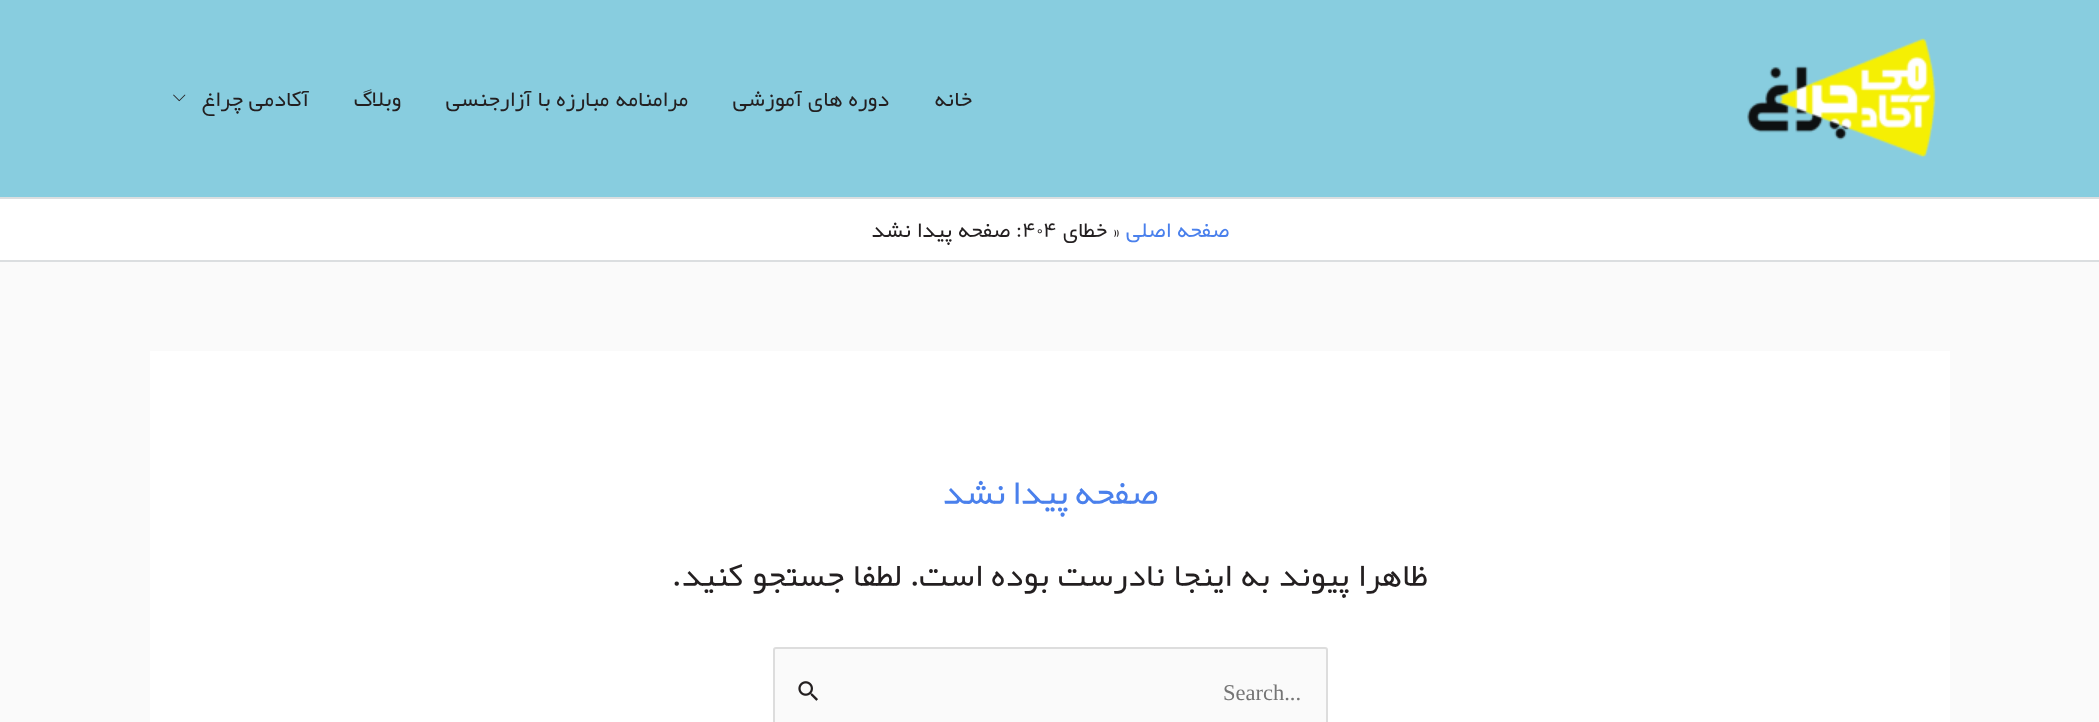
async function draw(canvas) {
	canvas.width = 2099;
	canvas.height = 722;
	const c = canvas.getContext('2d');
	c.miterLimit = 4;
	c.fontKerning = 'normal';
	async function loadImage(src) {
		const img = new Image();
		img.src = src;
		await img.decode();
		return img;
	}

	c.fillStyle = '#fafafa';
	c.fillRect(0, 0, 2099, 722);
	c.fillStyle = '#88cddf';
	c.fillRect(0, 0, 2099, 197);
	c.fillStyle = '#dbdee0';
	c.fillRect(0, 197, 2099, 2);
	c.drawImage(await loadImage('img1.png'), 1747, 38, 189, 120);
	c.direction = 'rtl';
	c.font = '22.5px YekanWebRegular';
	c.fillStyle = '#231f20';
	c.fillText('خانه', 972, 106);
	c.wordSpacing = '2px';
	c.fillText('دوره های آموزشی', 889, 106);
	c.fillText('مرامنامه مبارزه با آزارجنسی', 688, 106);
	c.wordSpacing = '0px';
	c.fillText('وبلاگ', 401, 106);
	c.wordSpacing = '2px';
	c.fillText('آکادمی چراغ', 309, 106);
	c.drawImage(await loadImage('img2.png'), 173, 94, 13, 8);
	c.fillStyle = '#fff';
	c.fillRect(0, 199, 2099, 61);
	c.fillStyle = '#dbdee0';
	c.fillRect(0, 260, 2099, 2);
	c.fillStyle = '#4a80ec';
	c.fillText('صفحه اصلی', 1229, 237);
	c.wordSpacing = '0px';
	c.direction = 'ltr';
	c.fillStyle = '#231f20';
	c.fillText('»', 1112, 237);
	c.direction = 'rtl';
	c.fillText('خطای', 1107, 237);
	c.direction = 'ltr';
	c.fillText('۴۰۴', 1022, 237);
	c.wordSpacing = '2px';
	c.direction = 'rtl';
	c.fillText(': صفحه پیدا نشد', 1022, 237);
	c.fillStyle = '#fff';
	c.fillRect(150, 351, 1800, 371);
	c.wordSpacing = '0px';
	c.font = '36px YekanWebRegular';
	c.fillStyle = '#4a80ec';
	c.fillText('صفحه پیدا نشد', 1158, 504);
	c.wordSpacing = '2.75px';
	c.font = '33.75px YekanWebRegular';
	c.fillStyle = '#231f20';
	c.fillText('ظاهرا پیوند به اینجا نادرست بوده است. لطفا جستجو کنید.', 1428, 586);
	c.fillStyle = '#fafafa';
	c.beginPath();
	c.roundRect(774, 648, 553, 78, 2);
	c.fill();
	c.strokeStyle = '#ddd';
	c.lineWidth = 2;
	c.stroke();
	c.wordSpacing = '0px';
	c.direction = 'ltr';
	c.font = '22.5px Liberation Serif';
	c.fillStyle = '#757575';
	c.fillText('Search...', 1223, 700);
	c.drawImage(await loadImage('img3.png'), 798, 681, 20, 20);
}

draw(document.querySelector('canvas'));
